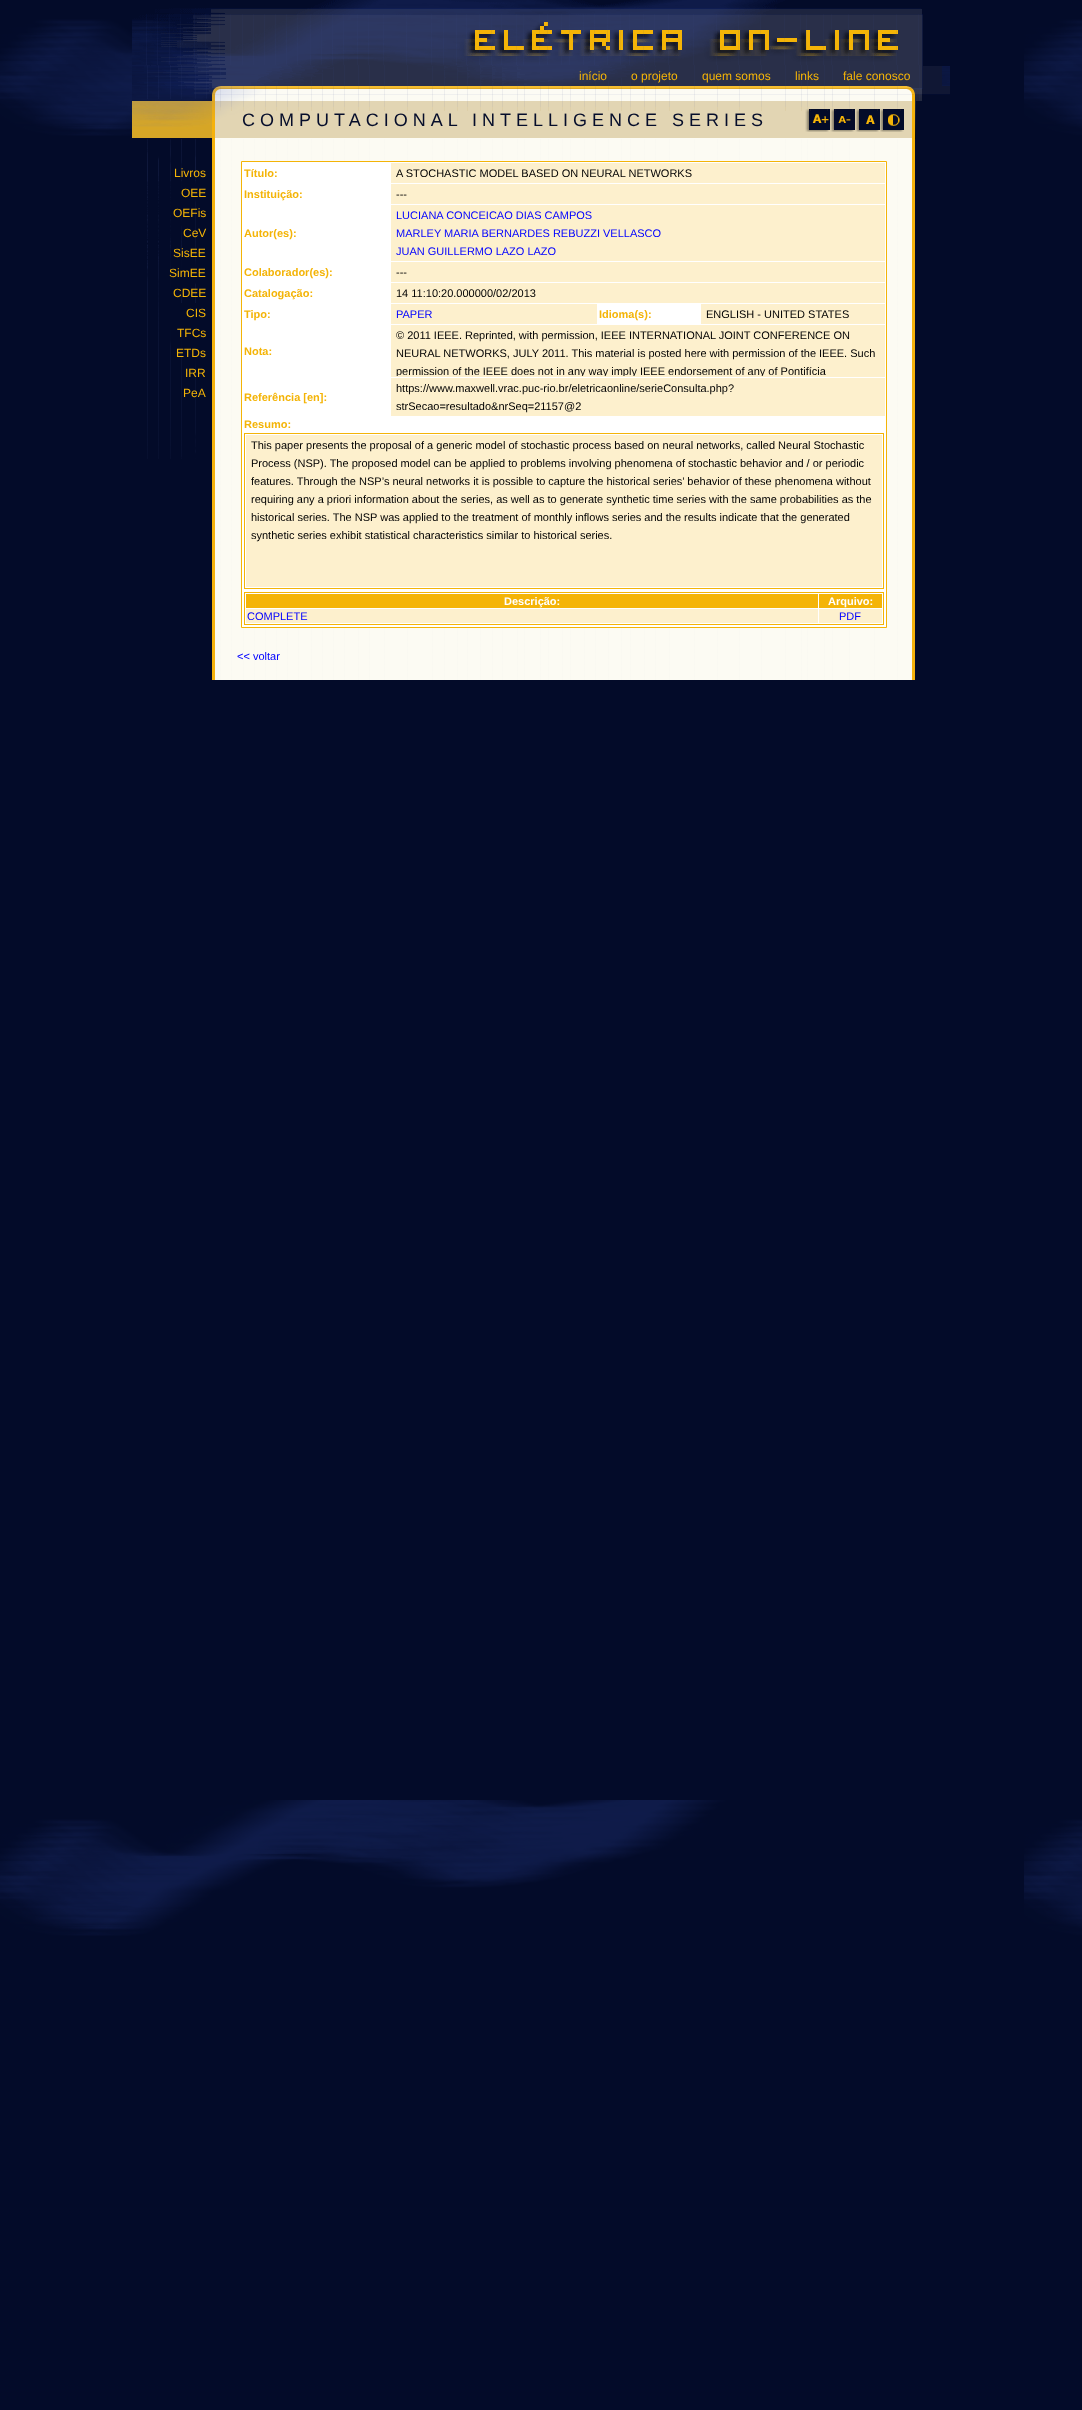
async function draw(canvas) {
	canvas.width = 1082;
	canvas.height = 2410;
	const c = canvas.getContext('2d');
	c.miterLimit = 4;
	c.fontKerning = 'normal';
	async function loadImage(src) {
		const img = new Image();
		img.src = src;
		await img.decode();
		return img;
	}

	c.fillStyle = '#030b29';
	c.fillRect(0, 0, 1082, 2410);
	c.drawImage(await loadImage('img1.png'), 0, 0, 1082, 1936);
	c.drawImage(await loadImage('img2.png'), 132, 0, 791, 66);
	c.drawImage(await loadImage('img3.png'), 132, 66, 818, 20);
	c.font = '12px Liberation Sans';
	c.fillStyle = '#f4b407';
	for (const [text, x, y] of [
		['início', 579, 80],
		['o projeto', 631, 80],
		['quem somos', 702, 80],
		['links', 795, 80],
		['fale conosco', 843, 80],
	]) {
		c.fillText(text, x, y);
	}
	c.drawImage(await loadImage('img4.png'), 132, 86, 818, 15);
	c.drawImage(await loadImage('img5.png'), 132, 101, 80, 37);
	c.drawImage(await loadImage('img6.png'), 212, 101, 704, 38);
	c.letterSpacing = '5px';
	c.font = '18px Liberation Sans';
	c.fillStyle = '#050d2b';
	c.fillText('COMPUTACIONAL INTELLIGENCE SERIES', 242, 126);
	c.drawImage(await loadImage('img7.png'), 805, 109, 25, 23);
	c.drawImage(await loadImage('img8.png'), 830, 109, 25, 23);
	c.drawImage(await loadImage('img9.png'), 855, 109, 25, 23);
	c.drawImage(await loadImage('img10.png'), 880, 109, 24, 23);
	c.drawImage(await loadImage('img11.png'), 147, 139, 49, 320);
	c.letterSpacing = '0px';
	c.font = '12px Liberation Sans';
	c.fillStyle = '#f4b407';
	for (const [text, x, y] of [
		['Livros', 174, 177],
		['OEE', 181, 197],
		['OEFis', 173, 217],
		['CeV', 183, 237],
		['SisEE', 173, 257],
		['SimEE', 169, 277],
		['CDEE', 173, 297],
		['CIS', 186, 317],
		['TFCs', 177, 337],
		['ETDs', 176, 357],
		['IRR', 185, 377],
		['PeA', 183, 397],
	]) {
		c.fillText(text, x, y);
	}
	c.drawImage(await loadImage('img12.png'), 212, 139, 703, 541);
	c.fillStyle = '#fff';
	c.beginPath();
	c.rect(241.5, 161.5, 645, 466);
	c.fill();
	c.strokeStyle = '#f4b407';
	c.stroke();
	c.font = 'bold 11px Liberation Sans';
	c.fillStyle = '#f4b407';
	c.fillText('Título:', 244, 177);
	c.fillStyle = '#fdf0cd';
	c.fillRect(391, 163, 494, 20);
	c.font = '11px Liberation Sans';
	c.fillStyle = '#000';
	c.fillText('A STOCHASTIC MODEL BASED ON NEURAL NETWORKS', 396, 177);
	c.font = 'bold 11px Liberation Sans';
	c.fillStyle = '#f4b407';
	c.fillText('Instituição:', 244, 198);
	c.fillStyle = '#fdf0cd';
	c.fillRect(391, 184, 494, 20);
	c.font = '11px Liberation Sans';
	c.fillStyle = '#000';
	c.fillText('---', 396, 198);
	c.font = 'bold 11px Liberation Sans';
	c.fillStyle = '#f4b407';
	c.fillText('Autor(es):', 244, 237);
	c.fillStyle = '#fdf0cd';
	c.fillRect(391, 205, 494, 56);
	c.font = '11px Liberation Sans';
	c.fillStyle = '#00f';
	for (const [text, x, y] of [
		['LUCIANA CONCEICAO DIAS CAMPOS', 396, 219],
		['MARLEY MARIA BERNARDES REBUZZI VELLASCO', 396, 237],
		['JUAN GUILLERMO LAZO LAZO', 396, 255],
	]) {
		c.fillText(text, x, y);
	}
	c.font = 'bold 11px Liberation Sans';
	c.fillStyle = '#f4b407';
	c.fillText('Colaborador(es):', 244, 276);
	c.fillStyle = '#fdf0cd';
	c.fillRect(391, 262, 494, 20);
	c.font = '11px Liberation Sans';
	c.fillStyle = '#000';
	c.fillText('---', 396, 276);
	c.font = 'bold 11px Liberation Sans';
	c.fillStyle = '#f4b407';
	c.fillText('Catalogação:', 244, 297);
	c.fillStyle = '#fdf0cd';
	c.fillRect(391, 283, 494, 20);
	c.font = '11px Liberation Sans';
	c.fillStyle = '#000';
	c.fillText('14 11:10:20.000000/02/2013', 396, 297);
	c.font = 'bold 11px Liberation Sans';
	c.fillStyle = '#f4b407';
	c.fillText('Tipo:', 244, 318);
	c.fillStyle = '#fdf0cd';
	c.fillRect(391, 304, 206, 20);
	c.font = '11px Liberation Sans';
	c.fillStyle = '#00f';
	c.fillText('PAPER', 396, 318);
	c.font = 'bold 11px Liberation Sans';
	c.fillStyle = '#f4b407';
	c.fillText('Idioma(s):', 599, 318);
	c.fillStyle = '#fdf0cd';
	c.fillRect(701, 304, 184, 20);
	c.font = '11px Liberation Sans';
	c.fillStyle = '#000';
	c.fillText('ENGLISH - UNITED STATES', 706, 318);
	c.font = 'bold 11px Liberation Sans';
	c.fillStyle = '#f4b407';
	c.fillText('Nota:', 244, 355);
	c.fillStyle = '#fdf0cd';
	c.fillRect(391, 325, 494, 52);
	c.font = '11px Liberation Sans';
	c.fillStyle = '#000';
	c.fillText('© 2011 IEEE. Reprinted, with permission, IEEE INTERNATIONAL JOINT CONFERENCE ON', 396, 339);
	c.fillText('NEURAL NETWORKS, JULY 2011. This material is posted here with permission of the IEEE. Such', 396, 357);
	c.save();
	c.beginPath();
	c.rect(396, 326, 488, 50);
	c.clip();
	c.fillText('permission of the IEEE does not in any way imply IEEE endorsement of any of Pontifícia', 396, 375);
	c.restore();
	c.font = 'bold 11px Liberation Sans';
	c.fillStyle = '#f4b407';
	c.fillText('Referência [en]:', 244, 401);
	c.fillStyle = '#fdf0cd';
	c.fillRect(391, 378, 494, 38);
	c.font = '11px Liberation Sans';
	c.fillStyle = '#000';
	c.fillText('https://www.maxwell.vrac.puc-rio.br/eletricaonline/serieConsulta.php?', 396, 392);
	c.fillText('strSecao=resultado&nrSeq=21157@2', 396, 410);
	c.font = 'bold 11px Liberation Sans';
	c.fillStyle = '#f4b407';
	c.fillText('Resumo:', 244, 428);
	c.strokeRect(244.5, 433.5, 639, 155);
	c.fillStyle = '#fdf0cd';
	c.fillRect(246, 435, 636, 152);
	c.font = '11px Liberation Sans';
	c.fillStyle = '#000';
	for (const [text, x, y] of [
		['This paper presents the proposal of a generic model of stochastic process based on neural networks, called Neural Stochastic', 251, 449],
		['Process (NSP). The proposed model can be applied to problems involving phenomena of stochastic behavior and / or periodic', 251, 467],
		['features. Through the NSP’s neural networks it is possible to capture the historical series’ behavior of these phenomena without', 251, 485],
		['requiring any a priori information about the series, as well as to generate synthetic time series with the same probabilities as the', 251, 503],
		['historical series. The NSP was applied to the treatment of monthly inflows series and the results indicate that the generated', 251, 521],
		['synthetic series exhibit statistical characteristics similar to historical series.', 251, 539],
	]) {
		c.fillText(text, x, y);
	}
	c.strokeRect(244.5, 592.5, 639, 32);
	c.fillStyle = '#f4b407';
	c.fillRect(246, 594, 572, 14);
	c.font = 'bold 11px Liberation Sans';
	c.fillStyle = '#fff';
	c.fillText('Descrição:', 504, 605);
	c.fillStyle = '#f4b407';
	c.fillRect(819, 594, 63, 14);
	c.fillStyle = '#fff';
	c.fillText('Arquivo:', 828, 605);
	c.fillStyle = '#fdf0cd';
	c.fillRect(246, 609, 572, 14);
	c.font = '11px Liberation Sans';
	c.fillStyle = '#00f';
	c.fillText('COMPLETE', 247, 620);
	c.fillStyle = '#fdf0cd';
	c.fillRect(819, 609, 63, 14);
	c.fillStyle = '#00f';
	c.fillText('PDF', 839, 620);
	c.fillText('<< voltar', 237, 660);
}

draw(document.querySelector('canvas'));
